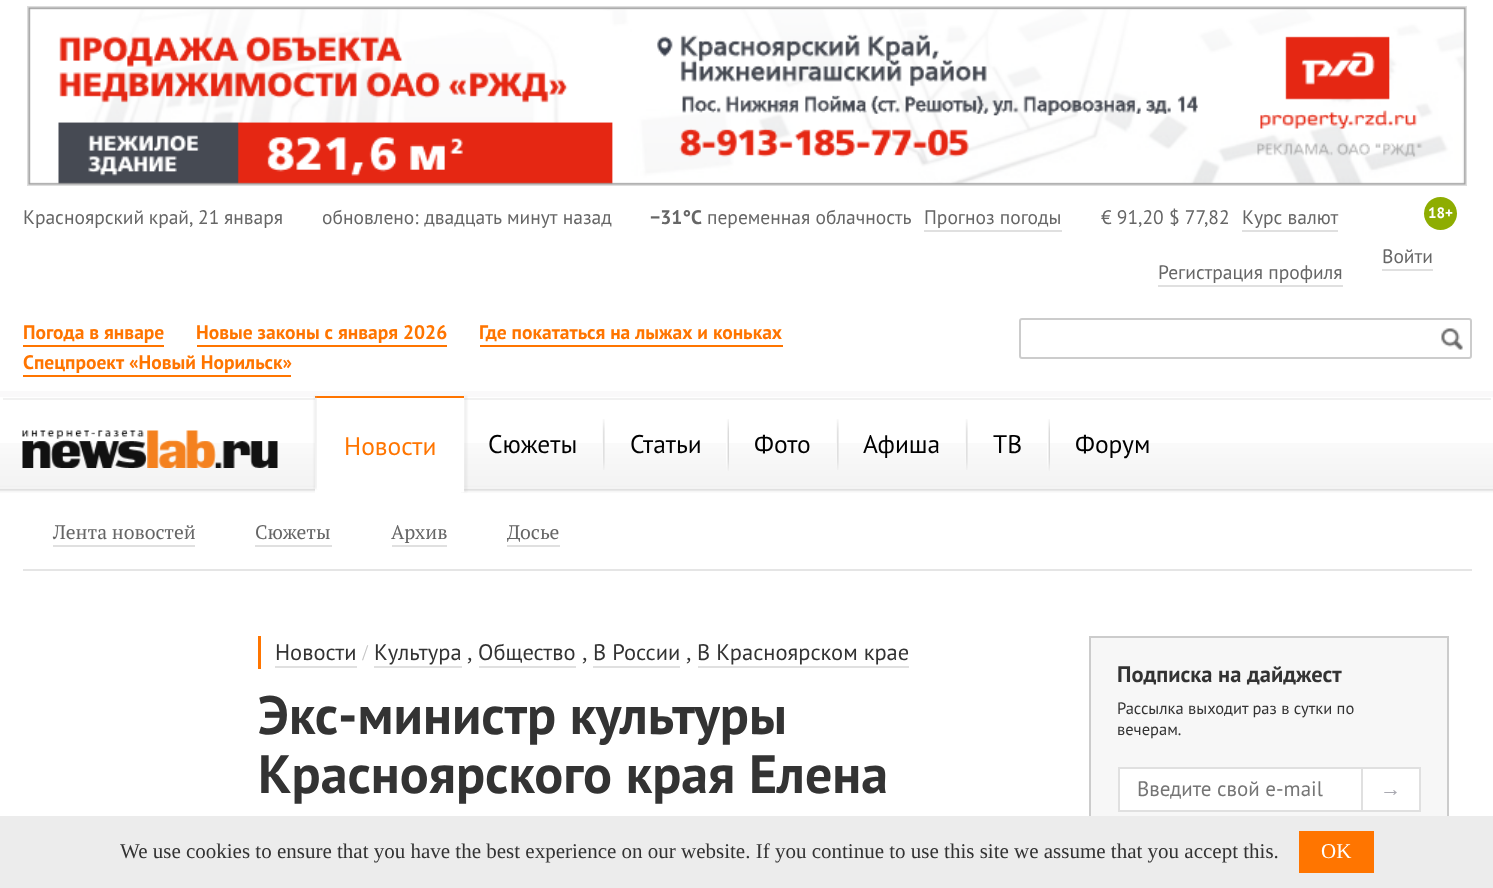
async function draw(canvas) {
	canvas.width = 1493;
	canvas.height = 888;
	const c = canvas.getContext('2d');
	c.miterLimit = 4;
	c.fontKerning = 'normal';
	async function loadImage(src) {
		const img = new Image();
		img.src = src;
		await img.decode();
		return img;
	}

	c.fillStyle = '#fff';
	c.fillRect(0, 0, 1493, 888);
	c.strokeStyle = '#ddd';
	c.lineWidth = 2;
	c.strokeRect(28, 7, 1438, 178);
	c.drawImage(await loadImage('img1.png'), 28, 7, 1438, 178);
	c.wordSpacing = '-0.5px';
	c.font = '19.5px PT Sans';
	c.fillStyle = '#666';
	c.fillText('Красноярский край, 21 января', 23, 224);
	c.wordSpacing = '0.5px';
	c.fillText('обновлено: двадцать минут назад', 322, 224);
	c.wordSpacing = '0px';
	c.font = 'bold 19.5px PT Sans';
	c.fillText('−31°C', 650, 224);
	c.font = '19.5px PT Sans';
	c.fillText('переменная облачность', 707, 224);
	c.fillText('Прогноз погоды', 924, 224);
	c.fillStyle = '#e0e0e0';
	c.fillRect(924, 230, 138, 2);
	c.fillStyle = '#666';
	c.fillText('€ 91,20 $ 77,82', 1101, 224);
	c.fillText('Курс валют', 1242, 224);
	c.fillStyle = '#e0e0e0';
	c.fillRect(1242, 230, 96, 2);
	c.fillStyle = '#8ead01';
	c.beginPath();
	c.arc(1440.5, 213.5, 16.5, 0, 2 * Math.PI);
	c.fill();
	c.font = 'bold 15px PT Sans';
	c.fillStyle = '#fff';
	c.fillText('18+', 1428, 218);
	c.font = '19.5px PT Sans';
	c.fillStyle = '#666';
	c.fillText('Войти', 1382, 263);
	c.fillStyle = '#e0e0e0';
	c.fillRect(1382, 269, 51, 2);
	c.fillStyle = '#666';
	c.fillText('Регистрация профиля', 1158, 279);
	c.fillStyle = '#e0e0e0';
	c.fillRect(1158, 285, 185, 2);
	c.fillStyle = '#faf9fa';
	c.fillRect(0, 391, 1493, 6);
	c.font = 'bold 19.5px PT Sans';
	c.fillStyle = '#ff7500';
	c.fillText('Погода в январе', 23, 339);
	c.fillRect(23, 345, 141, 2);
	c.fillText('Новые законы с января 2026', 196, 339);
	c.fillRect(197, 345, 250, 2);
	c.fillText('Где покататься на лыжах и коньках', 479, 339);
	c.fillRect(480, 345, 303, 2);
	c.fillText('Спецпроект «Новый Норильск»', 23, 369);
	c.fillRect(23, 375, 268, 2);
	c.beginPath();
	c.roundRect(1020, 319, 451, 39, 2);
	c.strokeStyle = '#ccc';
	c.stroke();
	c.drawImage(await loadImage('img2.png'), 1441, 328, 22, 22);
	c.drawImage(await loadImage('img3.png'), 0, 443, 1493, 50);
	c.fillStyle = '#f1f1f1';
	c.fillRect(3, 398, 1488, 2);
	c.drawImage(await loadImage('img4.png'), 22, 430, 256, 38);
	c.fillStyle = '#fff';
	c.fillRect(315, 398, 146, 95);
	c.fillStyle = '#ff7500';
	c.fillRect(315, 396, 146, 2);
	c.fillStyle = '#c8c8c84d';
	c.filter = 'blur(1px)';
	c.beginPath();
	c.rect(314, 396, 3, 93);
	c.fill();
	c.filter = 'none';
	c.fillStyle = '#fff';
	c.fillRect(317, 396, 3, 93);
	c.fillStyle = '#ff7500';
	c.fillRect(317, 396, 3, 2);
	c.font = '25.5px PT Sans';
	c.fillText('Новости', 344, 455);
	c.fillStyle = '#c8c8c84d';
	c.filter = 'blur(1px)';
	c.beginPath();
	c.rect(464, 396, 3, 96);
	c.fill();
	c.filter = 'none';
	c.fillStyle = '#fff';
	c.fillRect(461, 396, 3, 96);
	c.fillStyle = '#ff7500';
	c.fillRect(461, 396, 3, 2);
	c.fillStyle = '#000';
	c.fillText('Сюжеты', 488, 453);
	c.drawImage(await loadImage('img5.png'), 602, 419, 3, 51);
	c.fillText('Статьи', 630, 453);
	c.drawImage(await loadImage('img6.png'), 726, 419, 3, 52);
	c.fillText('Фото', 754, 453);
	c.drawImage(await loadImage('img5.png'), 836, 419, 3, 51);
	c.fillText('Афиша', 863, 453);
	c.drawImage(await loadImage('img5.png'), 965, 419, 3, 51);
	c.fillText('ТВ', 993, 453);
	c.drawImage(await loadImage('img6.png'), 1047, 419, 3, 52);
	c.fillText('Форум', 1075, 453);
	c.fillStyle = '#e5e5e5';
	c.fillRect(23, 569, 1449, 2);
	c.font = '19.5px PT Serif';
	c.fillStyle = '#666';
	c.fillText('Лента новостей', 53, 539);
	c.fillStyle = '#e0e0e0';
	c.fillRect(53, 545, 142, 2);
	c.fillStyle = '#666';
	c.fillText('Сюжеты', 255, 539);
	c.fillStyle = '#e0e0e0';
	c.fillRect(255, 545, 77, 2);
	c.fillStyle = '#666';
	c.fillText('Архив', 391, 539);
	c.fillStyle = '#e0e0e0';
	c.fillRect(392, 545, 55, 2);
	c.fillStyle = '#666';
	c.fillText('Досье', 507, 539);
	c.fillStyle = '#e0e0e0';
	c.fillRect(507, 545, 53, 2);
	c.fillStyle = '#ff7500';
	c.fillRect(258, 636, 3, 33);
	c.font = '22.5px PT Sans';
	c.fillStyle = '#333';
	c.fillText('Новости', 275, 660);
	c.fillStyle = '#e0e0e0';
	c.fillRect(275, 666, 82, 2);
	c.font = '22.5px Liberation Serif';
	c.fillStyle = '#c5c5c5';
	c.fillText('/', 362, 660);
	c.font = '22.5px PT Sans';
	c.fillStyle = '#333';
	c.fillText('Культура', 374, 660);
	c.fillStyle = '#e0e0e0';
	c.fillRect(374, 666, 88, 2);
	c.font = '22.5px Liberation Serif';
	c.fillStyle = '#333';
	c.fillText(',', 467, 660);
	c.font = '22.5px PT Sans';
	c.fillText('Общество', 478, 660);
	c.fillStyle = '#e0e0e0';
	c.fillRect(479, 666, 97, 2);
	c.font = '22.5px Liberation Serif';
	c.fillStyle = '#333';
	c.fillText(',', 582, 660);
	c.font = '22.5px PT Sans';
	c.fillText('В России', 593, 660);
	c.fillStyle = '#e0e0e0';
	c.fillRect(593, 666, 87, 2);
	c.font = '22.5px Liberation Serif';
	c.fillStyle = '#333';
	c.fillText(',', 686, 660);
	c.font = '22.5px PT Sans';
	c.fillText('В Красноярском крае', 697, 660);
	c.fillStyle = '#e0e0e0';
	c.fillRect(698, 666, 211, 2);
	c.font = 'bold 54px PT Sans';
	c.fillStyle = '#333';
	c.fillText('Экс-министр культуры', 258, 734);
	c.fillText('Красноярского края Елена', 258, 793);
	c.fillStyle = '#f7f7f7';
	c.fillRect(1091, 638, 356, 178);
	c.strokeRect(1090, 637, 358, 199);
	c.font = 'bold 22.5px PT Sans';
	c.fillStyle = '#333';
	c.fillText('Подписка на дайджест', 1117, 682);
	c.font = '16.5px PT Sans';
	c.fillText('Рассылка выходит раз в сутки по', 1117, 714);
	c.fillText('вечерам.', 1117, 735);
	c.fillStyle = '#fff';
	c.fillRect(1120, 769, 241, 41);
	c.strokeStyle = '#e0e0e0';
	c.strokeRect(1119, 768, 244, 43);
	c.font = '21px PT Sans';
	c.fillStyle = '#757575';
	c.fillText('Введите свой e-mail', 1137, 796);
	c.fillStyle = '#fff';
	c.beginPath();
	c.rect(1362, 768, 58, 43);
	c.fill();
	c.stroke();
	c.font = '21px Liberation Sans';
	c.fillStyle = '#a9a9b1';
	c.fillText('→', 1380, 796);
	c.fillStyle = '#ececec';
	c.fillRect(0, 816, 1493, 72);
	c.font = '21px Liberation Serif';
	c.fillStyle = '#333';
	c.fillText('We use cookies to ensure that you have the best experience on our website. If you continue to use this site we assume that you accept this.', 120, 858);
	c.fillStyle = '#ff7500';
	c.fillRect(1299, 831, 75, 42);
	c.fillStyle = '#fff';
	c.fillText('OK', 1321, 858);
}

draw(document.querySelector('canvas'));
